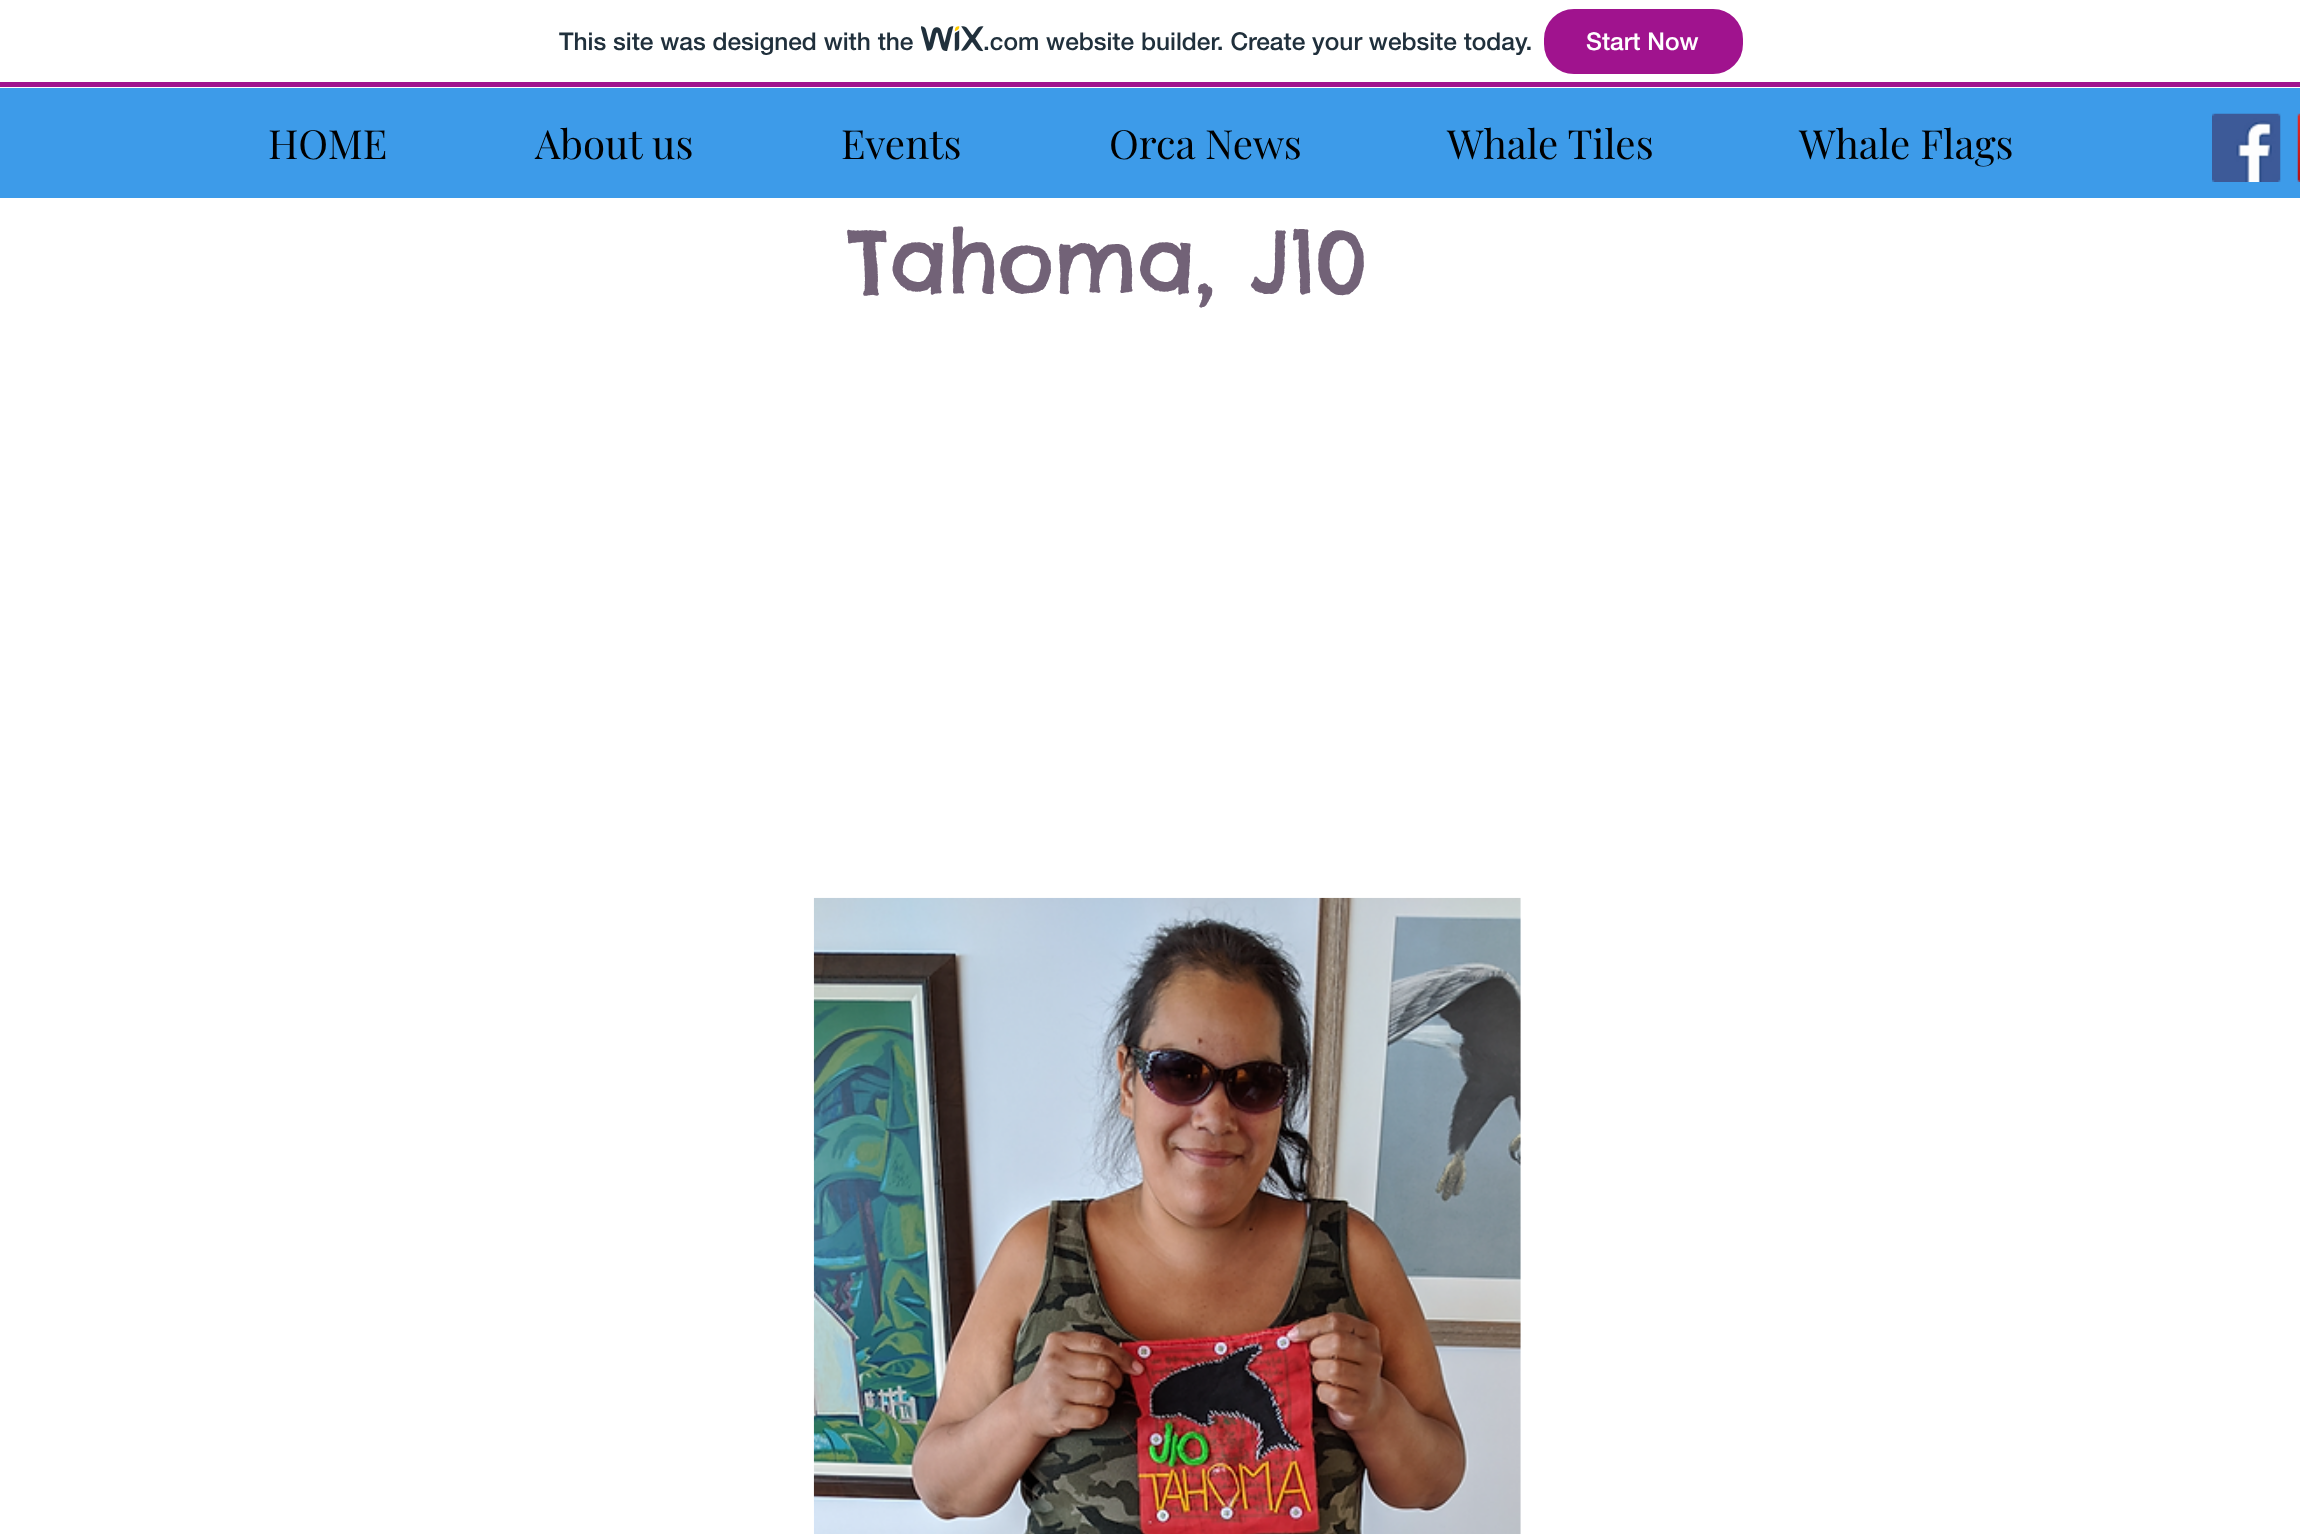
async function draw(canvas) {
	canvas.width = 2300;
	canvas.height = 1534;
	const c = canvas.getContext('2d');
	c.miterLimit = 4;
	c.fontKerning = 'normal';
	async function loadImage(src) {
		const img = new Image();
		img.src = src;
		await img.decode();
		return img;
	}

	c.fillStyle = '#fff';
	c.fillRect(0, 0, 2300, 1534);
	c.fillStyle = '#a0138e';
	c.fillRect(0, 82, 2300, 5);
	c.font = '500 24.5px "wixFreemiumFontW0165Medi"';
	c.fillStyle = '#20303c';
	c.fillText('This site was designed with the', 559, 50);
	c.drawImage(await loadImage('img1.png'), 921, 26, 63, 26);
	c.fillText('.com website builder. Create your website today.', 983, 50);
	c.fillStyle = '#a0138e';
	c.beginPath();
	c.roundRect(1545, 10, 197, 63, 29);
	c.fill();
	c.strokeStyle = '#a0138e';
	c.lineWidth = 2;
	c.stroke();
	c.fillStyle = '#fff';
	c.fillText('Start Now', 1586, 50);
	c.fillStyle = '#3d9be9';
	c.fillRect(0, 88, 2300, 110);
	c.font = '40.25px Playfair Display';
	c.fillStyle = '#000';
	for (const [text, x, y] of [
		['HOME', 268, 159],
		['About us', 535, 159],
		['Events', 841, 159],
		['Orca News', 1109, 159],
		['Whale Tiles', 1447, 159],
		['Whale Flags', 1799, 159],
	]) {
		c.fillText(text, x, y);
	}
	c.drawImage(await loadImage('img2.png'), 2212, 113, 69, 69);
	c.drawImage(await loadImage('img3.png'), 2297, 113, 3, 69);
	c.font = '85.75px Chelsea Market';
	c.fillStyle = '#726277';
	c.fillText('Tahoma, J10', 848, 292);
	c.drawImage(await loadImage('img4.png'), 813, 897, 708, 637);
}

draw(document.querySelector('canvas'));
